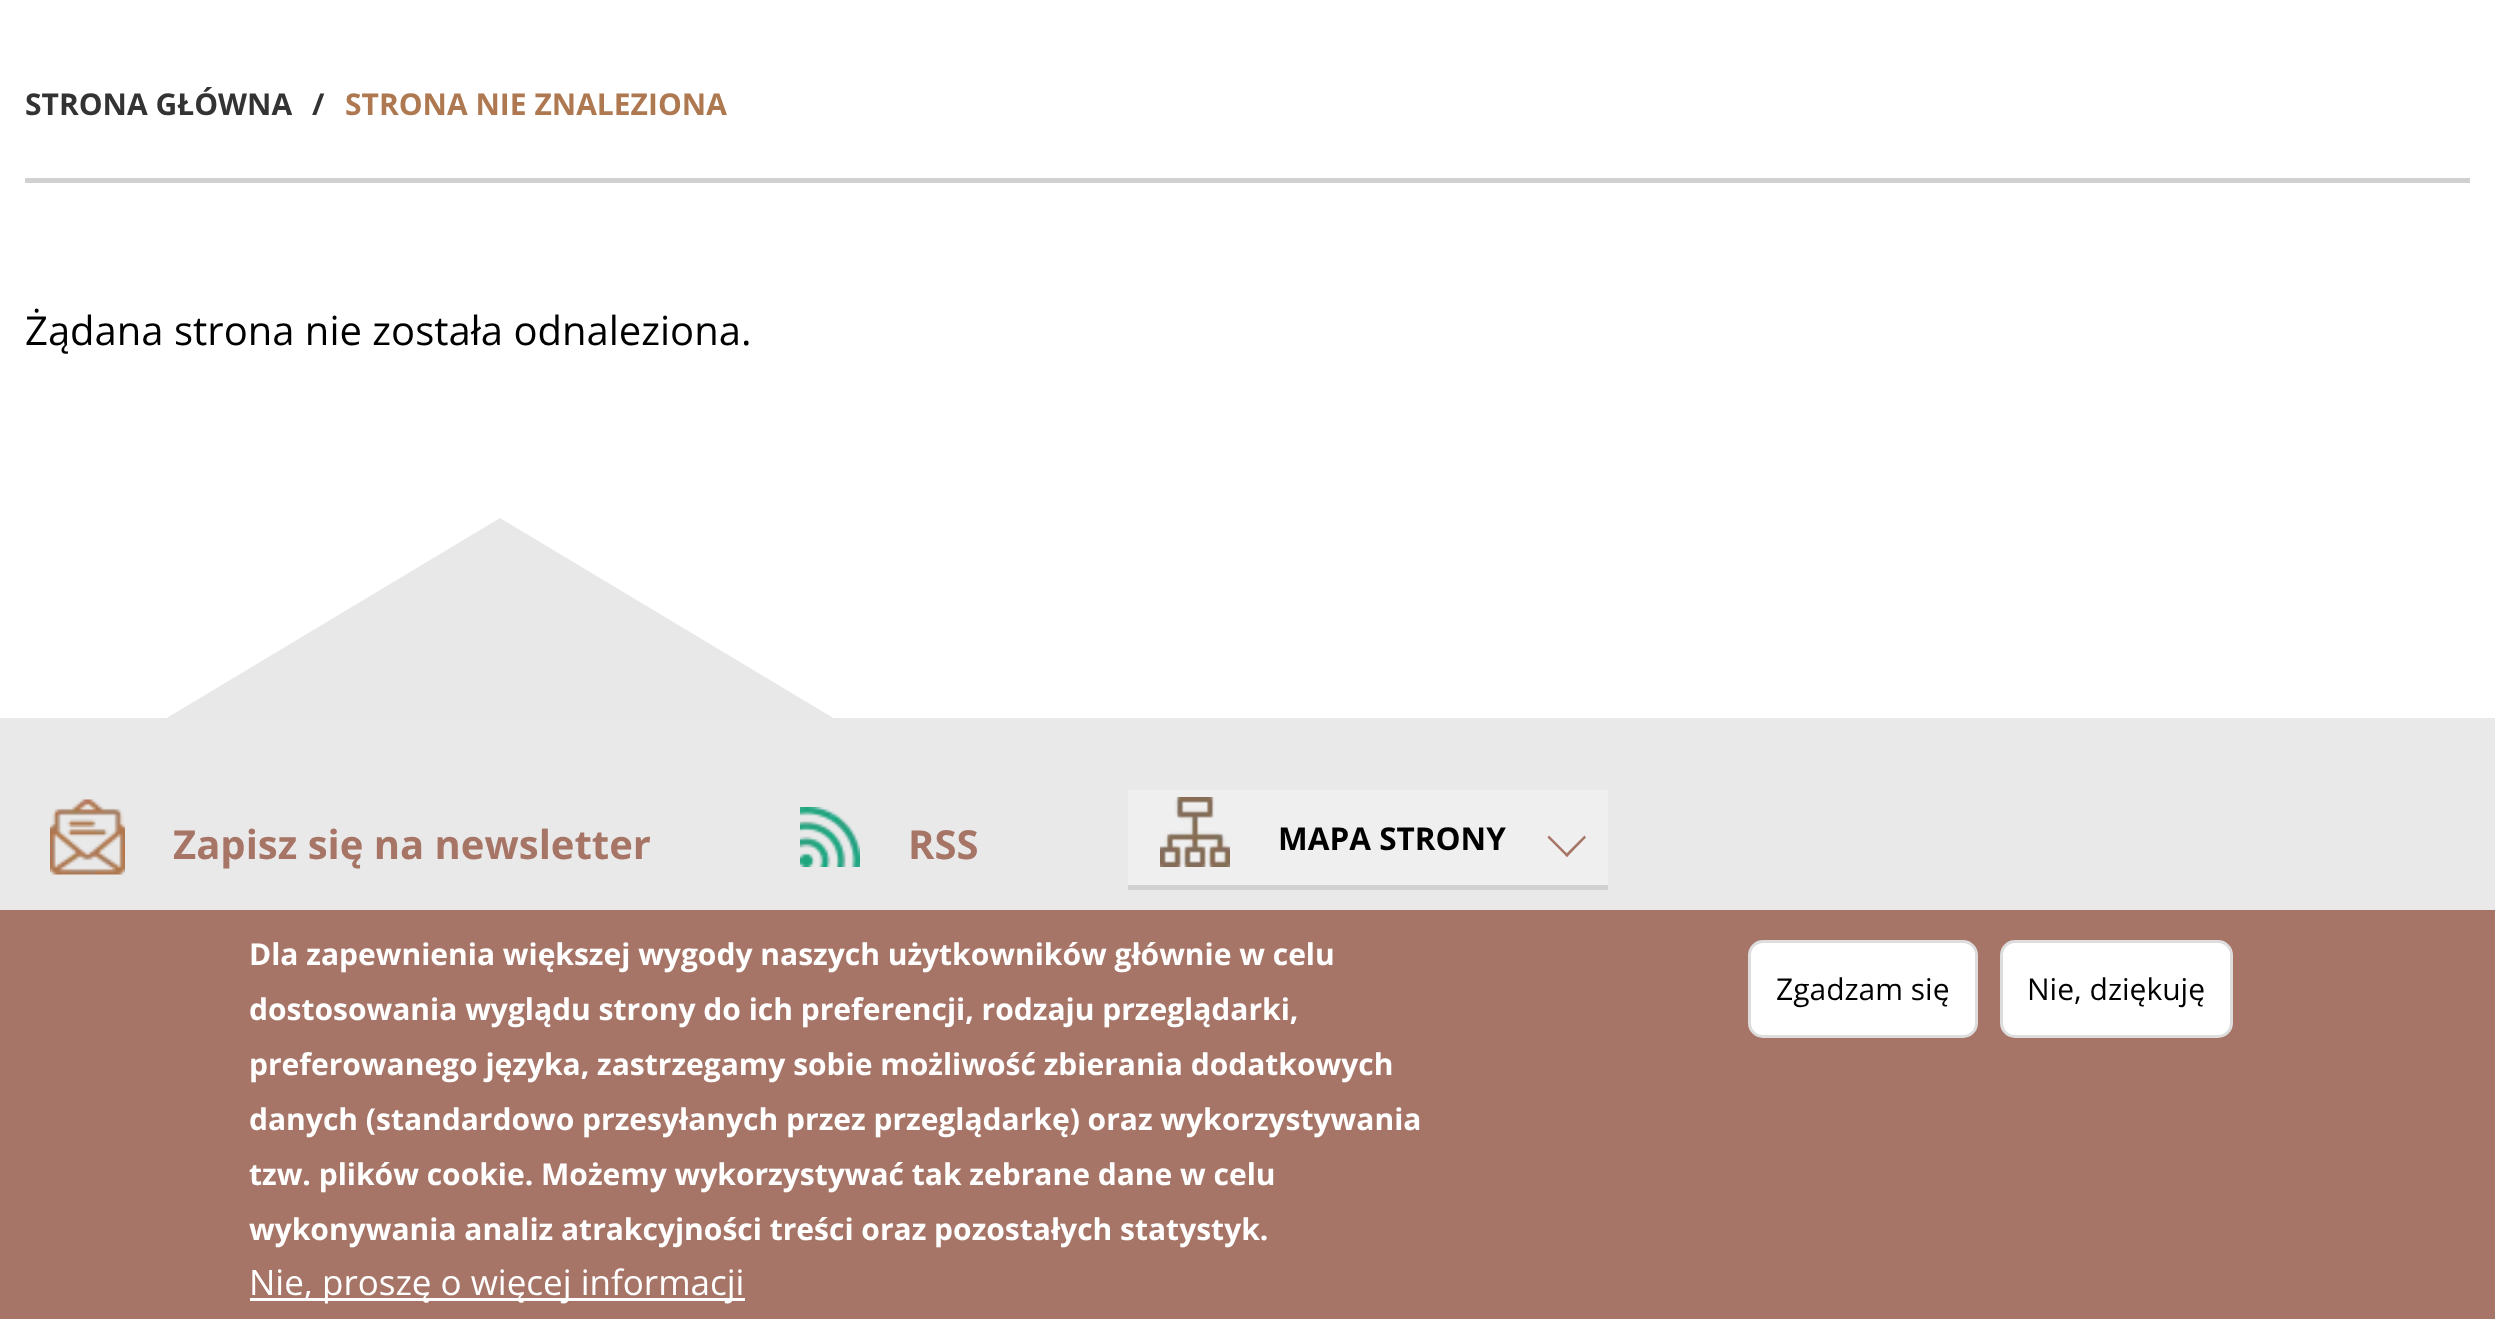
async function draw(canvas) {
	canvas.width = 2495;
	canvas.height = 1319;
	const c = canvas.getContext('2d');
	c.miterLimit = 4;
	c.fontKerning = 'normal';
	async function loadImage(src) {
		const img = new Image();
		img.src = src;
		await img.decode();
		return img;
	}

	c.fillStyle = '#fff';
	c.fillRect(0, 0, 2495, 1319);
	c.fillStyle = '#d1d1d1';
	c.fillRect(25, 178, 2445, 5);
	c.font = 'bold 30px Open Sans';
	c.fillStyle = '#333';
	c.fillText('STRONA GŁÓWNA', 25, 115);
	c.fillText('/', 312, 115);
	c.fillStyle = '#ae7850';
	c.fillText('STRONA NIE ZNALEZIONA', 345, 115);
	c.font = '40px Open Sans';
	c.fillStyle = '#000';
	c.fillText('Żądana strona nie została odnaleziona.', 25, 345);
	c.fillStyle = '#e8e8e8';
	c.beginPath();
	c.moveTo(1750, 1268);
	c.lineTo(-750, 1268);
	c.lineTo(500, 518);
	c.closePath();
	c.fill();
	c.fillStyle = '#e9e9e9';
	c.fillRect(0, 718, 2495, 192);
	c.drawImage(await loadImage('img1.png'), 50, 799, 75, 76);
	c.font = 'bold 40px Open Sans';
	c.fillStyle = '#a77566';
	c.fillText('Zapisz się na newsletter', 173, 859);
	c.drawImage(await loadImage('img2.png'), 800, 807, 60, 60);
	c.fillText('RSS', 908, 859);
	c.fillStyle = '#efefef';
	c.fillRect(1128, 790, 480, 95);
	c.fillStyle = '#d1d1d1';
	c.fillRect(1128, 885, 480, 5);
	c.drawImage(await loadImage('img3.png'), 1160, 797, 70, 70);
	c.font = 'bold 31.5px Open Sans';
	c.fillStyle = '#000';
	c.fillText('MAPA STRONY', 1278, 850);
	c.fillStyle = '#a77566';
	c.beginPath();
	c.moveTo(1567, 857);
	c.lineTo(1547.5, 837.5);
	c.lineTo(1549, 835.5);
	c.lineTo(1568.5, 855);
	c.closePath();
	c.fill();
	c.beginPath();
	c.moveTo(1567, 857);
	c.lineTo(1565, 855);
	c.lineTo(1584.5, 835.5);
	c.lineTo(1586, 837.5);
	c.closePath();
	c.fill();
	c.fillStyle = '#a67567';
	c.fillRect(0, 910, 2495, 409);
	c.font = 'bold 30px Open Sans';
	c.fillStyle = '#fff';
	for (const [text, x, y] of [
		['Dla zapewnienia większej wygody naszych użytkowników głównie w celu', 249, 965],
		['dostosowania wyglądu strony do ich preferencji, rodzaju przeglądarki,', 249, 1020],
		['preferowanego języka, zastrzegamy sobie możliwość zbierania dodatkowych', 249, 1075],
		['danych (standardowo przesyłanych przez przeglądarkę) oraz wykorzystywania', 249, 1130],
		['tzw. plików cookie. Możemy wykorzystywać tak zebrane dane w celu', 249, 1185],
		['wykonywania analiz atrakcyjności treści oraz pozostałych statystyk.', 249, 1240],
	]) {
		c.fillText(text, x, y);
	}
	c.fillRect(250, 1298, 495, 3);
	c.font = '35px Open Sans';
	c.fillText('Nie, proszę o więcej informacji', 249, 1295);
	c.beginPath();
	c.roundRect(1749.5, 941.5, 227, 95, 13.5);
	c.fill();
	c.strokeStyle = '#ddd';
	c.lineWidth = 3;
	c.stroke();
	c.font = '30px Open Sans';
	c.fillStyle = '#000';
	c.fillText('Zgadzam się', 1776, 1000);
	c.fillStyle = '#fff';
	c.beginPath();
	c.roundRect(2001.5, 941.5, 230, 95, 13.5);
	c.fill();
	c.stroke();
	c.fillStyle = '#000';
	c.fillText('Nie, dziękuję', 2027, 1000);
}

draw(document.querySelector('canvas'));
